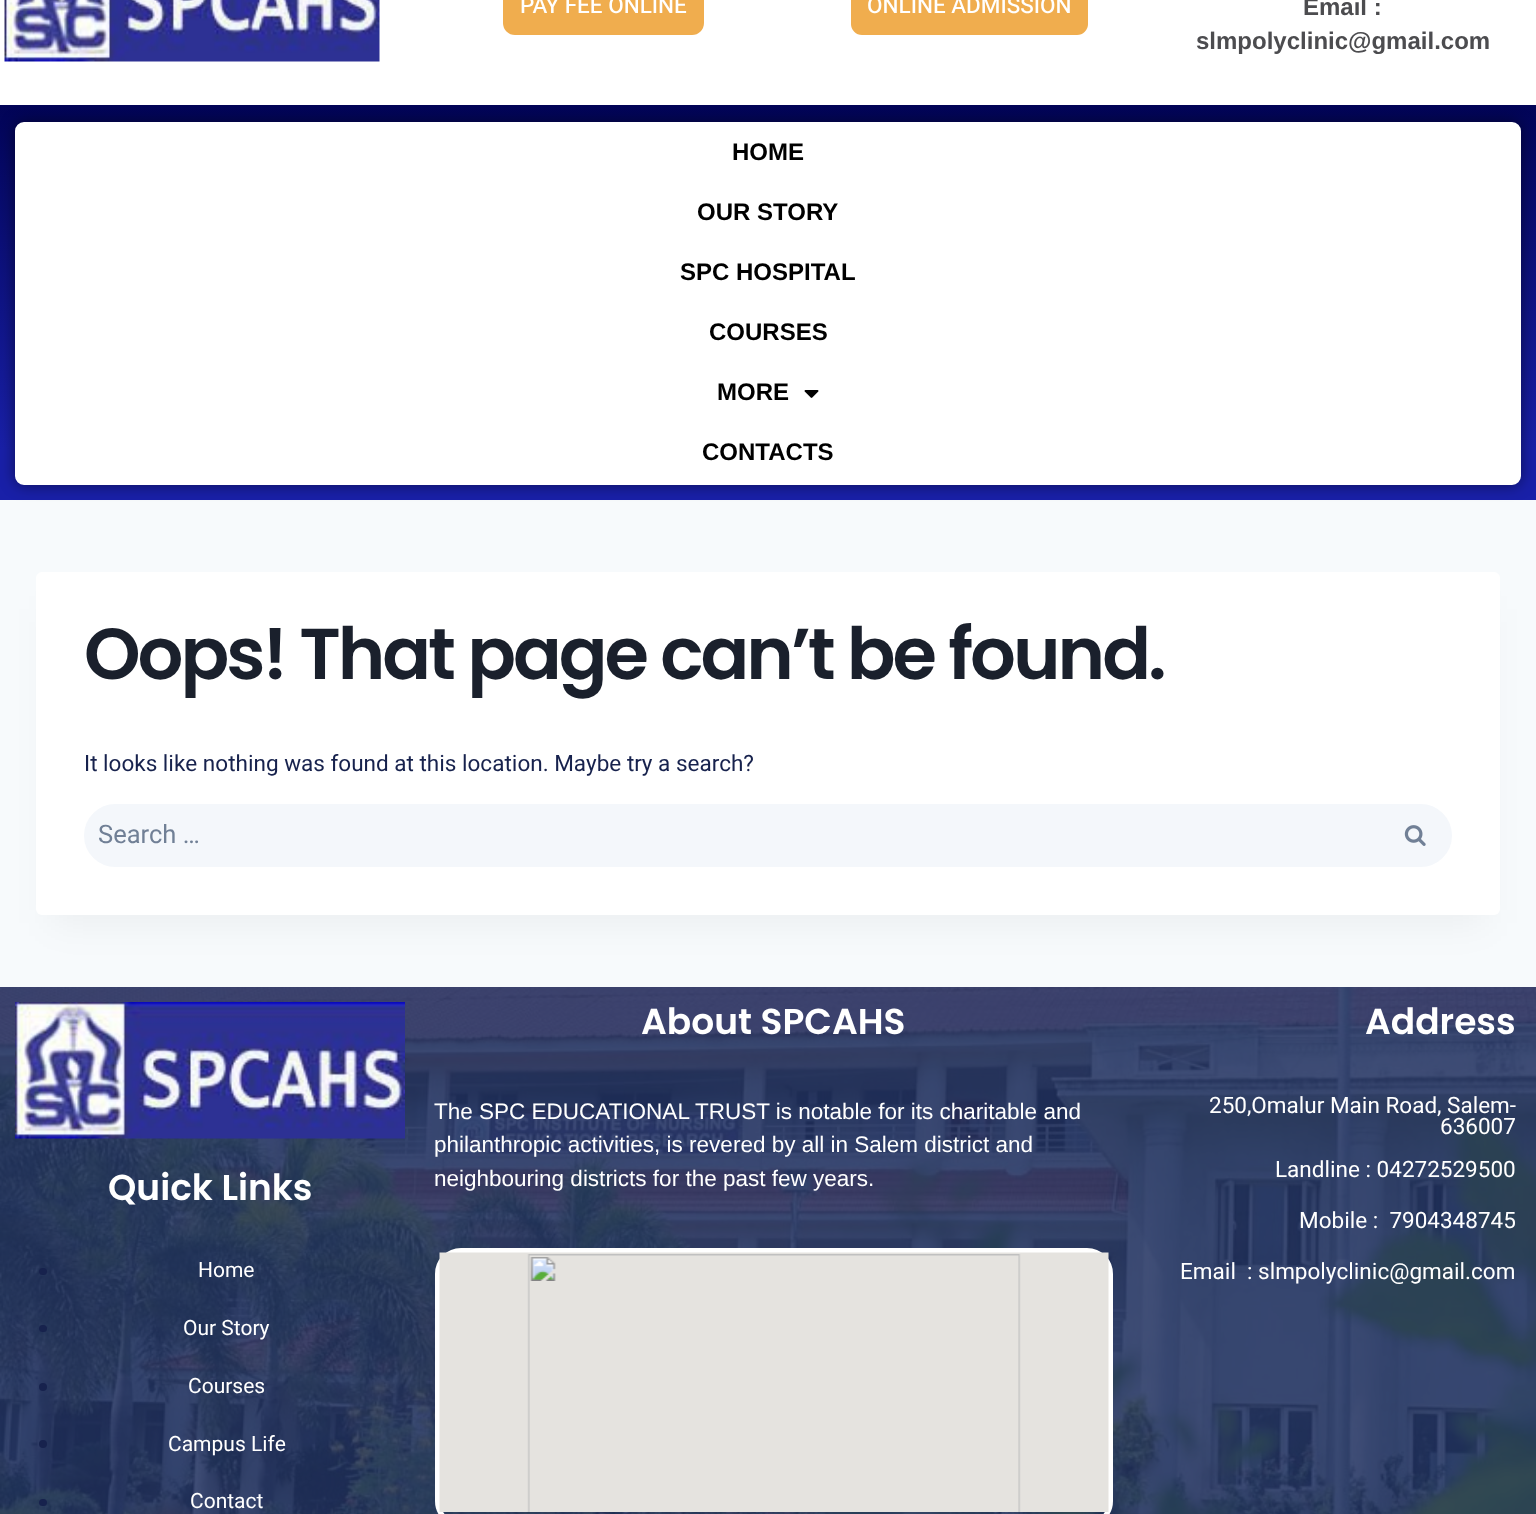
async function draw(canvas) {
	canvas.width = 1536;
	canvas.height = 1514;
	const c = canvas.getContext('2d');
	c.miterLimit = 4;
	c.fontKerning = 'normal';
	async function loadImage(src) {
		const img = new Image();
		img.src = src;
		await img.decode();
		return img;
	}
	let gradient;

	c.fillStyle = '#f7fafc';
	c.fillRect(0, 0, 1536, 1514);
	c.fillStyle = '#fff';
	c.fillRect(0, 0, 1536, 105);
	c.drawImage(await loadImage('img1.png'), 4, 0, 376, 62);
	c.fillStyle = '#f0ad4e';
	c.beginPath();
	c.roundRect(503, -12, 201, 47, 12);
	c.fill();
	c.font = '500 22.5px Heebo';
	c.fillStyle = '#fff';
	c.fillText('PAY FEE ONLINE', 520, 13);
	c.fillStyle = '#f0ad4e';
	c.beginPath();
	c.roundRect(851, -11, 237, 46, 11);
	c.fill();
	c.fillStyle = '#fff';
	c.fillText('ONLINE ADMISSION', 867, 13);
	c.font = 'bold 24px Liberation Sans';
	c.fillStyle = '#4c4c4f';
	c.fillText('Email :', 1303, 15);
	c.fillText('slmpolyclinic@gmail.com', 1196, 49);
	gradient = c.createLinearGradient(768, 105, 768, 500);
	gradient.addColorStop(0, '#020457');
	gradient.addColorStop(0.87, '#1920a8');
	c.fillStyle = gradient;
	c.fillRect(0, 105, 1536, 395);
	c.fillStyle = '#00000080';
	c.filter = 'blur(7.5px)';
	c.beginPath();
	c.roundRect(15, 122, 1506, 363, 9);
	c.fill();
	c.filter = 'none';
	c.fillStyle = '#fff';
	c.beginPath();
	c.roundRect(16, 123, 1504, 361, 8);
	c.fill();
	c.strokeStyle = '#fff';
	c.lineWidth = 2;
	c.stroke();
	c.fillStyle = '#000';
	for (const [text, x, y] of [
		['HOME', 732, 160],
		['OUR STORY', 697, 220],
		['SPC HOSPITAL', 680, 280],
		['COURSES', 709, 340],
		['MORE', 717, 400],
	]) {
		c.fillText(text, x, y);
	}
	c.drawImage(await loadImage('img2.png'), 804, 390, 15, 8);
	c.fillText('CONTACTS', 702, 460);
	c.fillStyle = '#0000000d';
	c.filter = 'blur(19px)';
	c.beginPath();
	c.rect(51, 609, 1434, 314);
	c.fill();
	c.filter = 'none';
	c.fillStyle = '#fff';
	c.beginPath();
	c.roundRect(36, 572, 1464, 343, 6);
	c.fill();
	c.letterSpacing = '-3px';
	c.font = '600 72px Poppins';
	c.fillStyle = '#1a202c';
	c.fillText('Oops! That page can’t be found.', 84, 679);
	c.letterSpacing = '0px';
	c.font = '22.5px Heebo';
	c.fillStyle = '#17224d';
	c.fillText('It looks like nothing was found at this location. Maybe try a search?', 84, 771);
	c.fillStyle = '#f4f7fb';
	c.beginPath();
	c.roundRect(85, 805, 1366, 61, 30.5);
	c.fill();
	c.strokeStyle = '#f4f7fb';
	c.stroke();
	c.font = '25.5px Roboto';
	c.fillStyle = '#718096';
	c.fillText('Search …', 98, 843);
	c.drawImage(await loadImage('img3.png'), 1404, 825, 22, 21);
	c.fillStyle = '#213260';
	c.fillRect(0, 987, 1536, 527);
	c.drawImage(await loadImage('img4.png'), 0, 987, 1536, 527);
	c.drawImage(await loadImage('img5.png'), 15, 1002, 390, 137);
	c.font = '600 36px Poppins';
	c.fillStyle = '#fff';
	c.fillText('Quick Links', 108, 1200);
	c.fillStyle = '#17224d';
	c.beginPath();
	c.roundRect(39, 1268, 8, 7, 3.5);
	c.fill();
	c.font = '21px Heebo';
	c.fillStyle = '#fff';
	c.fillText('Home', 198, 1277);
	c.fillStyle = '#17224d';
	c.beginPath();
	c.roundRect(39, 1325, 8, 7, 3.5);
	c.fill();
	c.fillStyle = '#fff';
	c.fillText('Our Story', 183, 1335);
	c.fillStyle = '#17224d';
	c.beginPath();
	c.arc(43, 1387, 4, 0, 2 * Math.PI);
	c.fill();
	c.fillStyle = '#fff';
	c.fillText('Courses', 188, 1393);
	c.fillStyle = '#17224d';
	c.beginPath();
	c.arc(43, 1444, 4, 0, 2 * Math.PI);
	c.fill();
	c.fillStyle = '#fff';
	c.fillText('Campus Life', 168, 1451);
	c.fillStyle = '#17224d';
	c.beginPath();
	c.roundRect(39, 1499, 8, 7, 3.5);
	c.fill();
	c.fillStyle = '#fff';
	c.fillText('Contact', 190, 1508);
	c.font = '600 36px Poppins';
	c.fillText('About SPCAHS', 641, 1034);
	c.font = '22.5px Liberation Sans';
	for (const [text, x, y] of [
		['The SPC EDUCATIONAL TRUST is notable for its charitable and', 434, 1119],
		['philanthropic activities, is revered by all in Salem district and', 434, 1152],
		['neighbouring districts for the past few years.', 434, 1186],
	]) {
		c.fillText(text, x, y);
	}
	c.beginPath();
	c.roundRect(437.5, 1250.5, 673, 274, 23.5);
	c.strokeStyle = '#fff';
	c.lineWidth = 5;
	c.stroke();
	c.drawImage(await loadImage('img6.png'), 439, 1252, 670, 260);
	c.font = '600 36px Poppins';
	c.fillText('Address', 1365, 1034);
	c.font = '22.5px Heebo';
	for (const [text, x, y] of [
		['250,Omalur Main Road, Salem-', 1209, 1113],
		['636007', 1440, 1134],
		['Landline : 04272529500', 1275, 1177],
		['Mobile :  7904348745', 1299, 1228],
		['Email  : slmpolyclinic@gmail.com', 1180, 1279],
	]) {
		c.fillText(text, x, y);
	}
}

draw(document.querySelector('canvas'));
